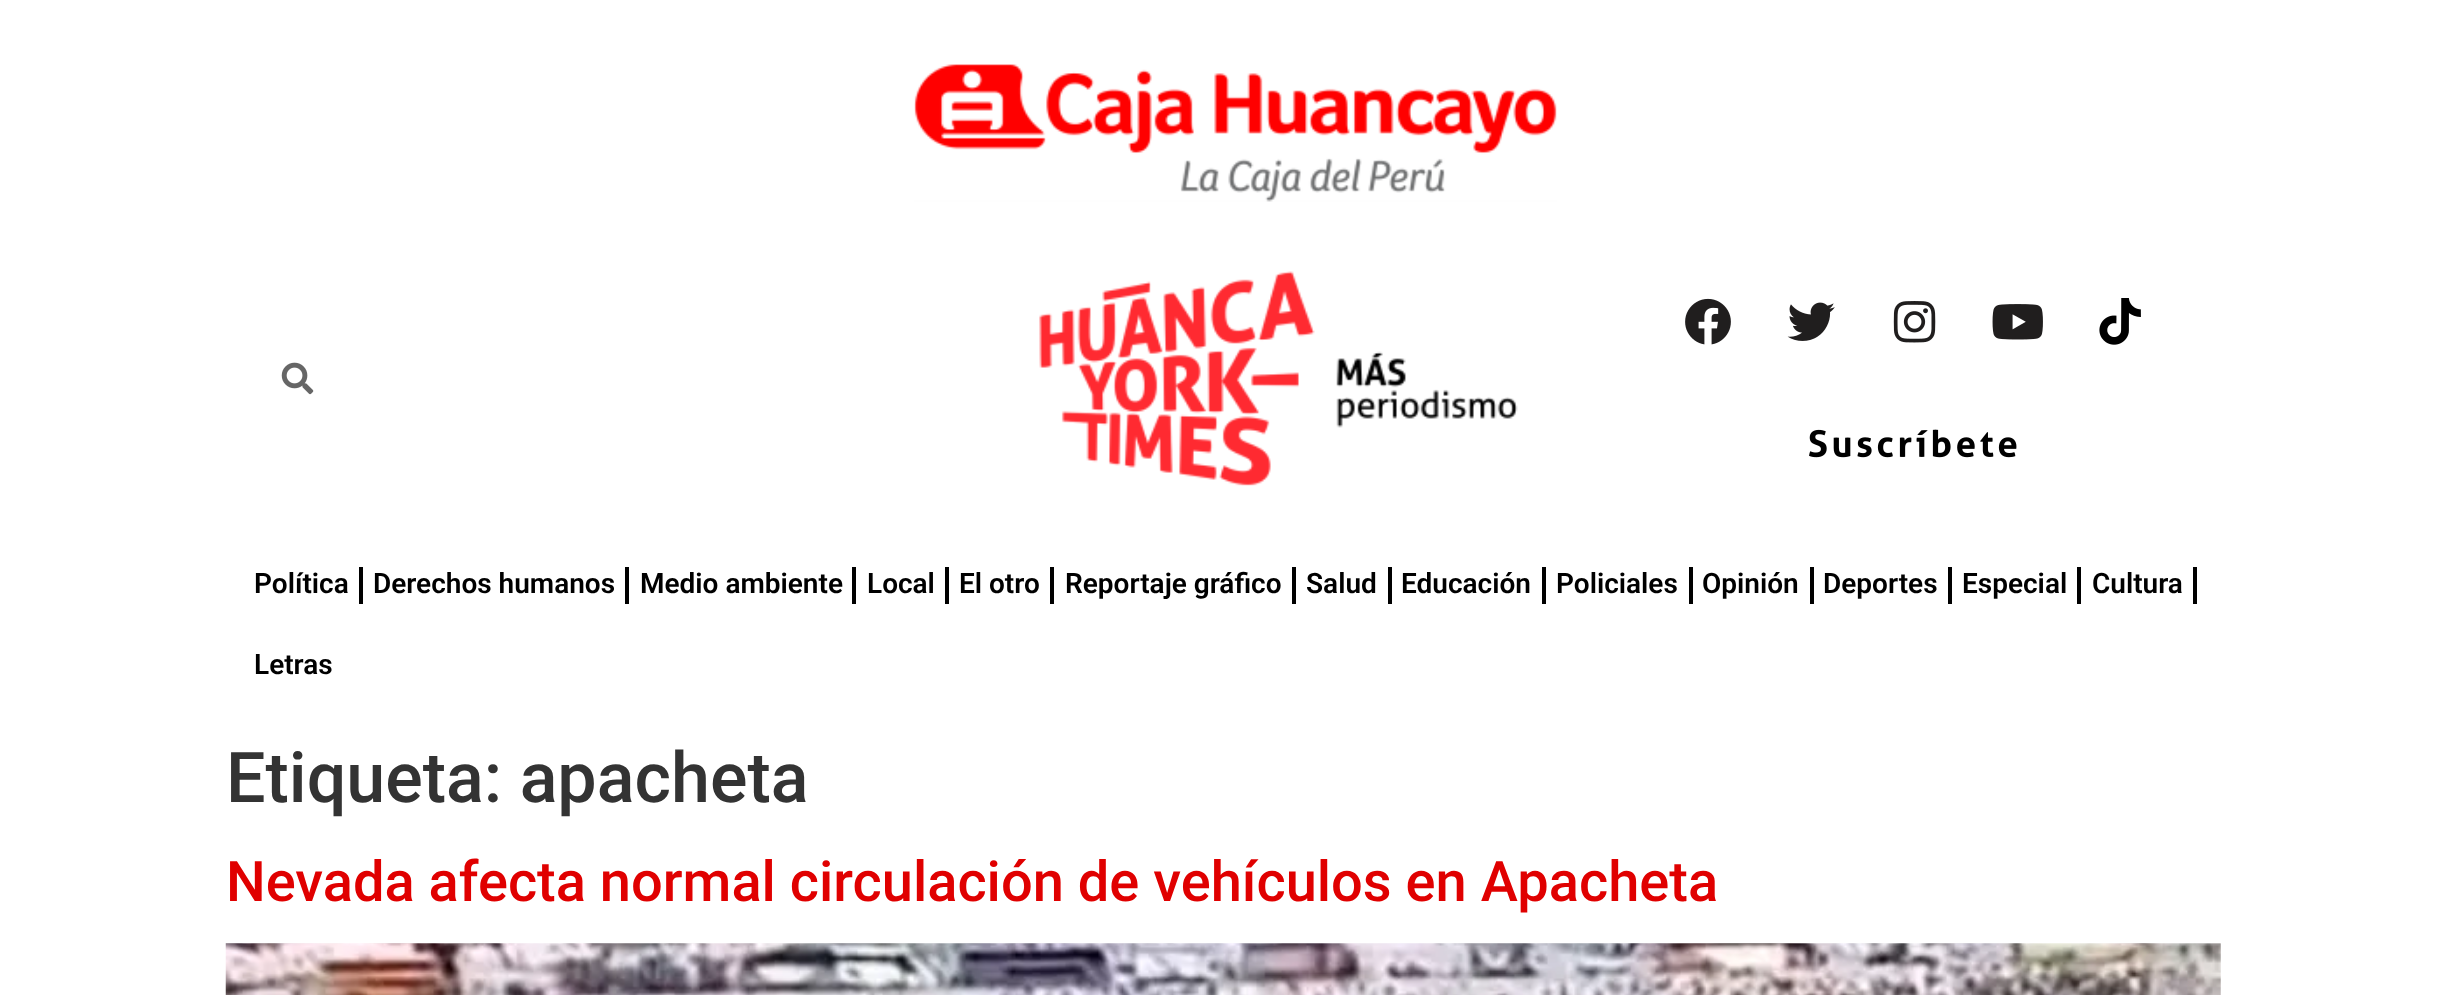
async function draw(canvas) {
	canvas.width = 2446;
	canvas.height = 995;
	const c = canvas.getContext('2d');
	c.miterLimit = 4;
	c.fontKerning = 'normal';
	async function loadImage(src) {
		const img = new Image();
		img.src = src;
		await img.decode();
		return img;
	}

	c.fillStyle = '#fff';
	c.fillRect(0, 0, 2446, 995);
	c.drawImage(await loadImage('img1.png'), 914, 64, 643, 138);
	c.drawImage(await loadImage('img2.png'), 281, 362, 33, 33);
	c.drawImage(await loadImage('img3.png'), 1039, 271, 479, 215);
	c.drawImage(await loadImage('img4.png'), 1685, 298, 46, 47);
	c.drawImage(await loadImage('img5.png'), 1787, 302, 48, 39);
	c.drawImage(await loadImage('img6.png'), 1893, 301, 43, 42);
	c.drawImage(await loadImage('img7.png'), 1992, 304, 51, 36);
	c.drawImage(await loadImage('img8.png'), 2099, 298, 42, 47);
	c.drawImage(await loadImage('img9.png'), 1809, 429, 208, 29);
	c.font = '600 28px Roboto';
	c.fillStyle = '#000';
	c.fillText('Política', 254, 593);
	c.fillRect(359, 567, 4, 37);
	c.fillText('Derechos humanos', 373, 593);
	c.fillRect(625, 567, 4, 37);
	c.fillText('Medio ambiente', 640, 593);
	c.fillRect(852, 567, 4, 37);
	c.fillText('Local', 867, 593);
	c.fillRect(945, 567, 4, 37);
	c.fillText('El otro', 959, 593);
	c.fillRect(1050, 567, 4, 37);
	c.fillText('Reportaje gráfico', 1065, 593);
	c.fillRect(1292, 567, 4, 37);
	c.fillText('Salud', 1306, 593);
	c.fillRect(1388, 567, 4, 37);
	c.fillText('Educación', 1401, 593);
	c.fillRect(1542, 567, 4, 37);
	c.fillText('Policiales', 1556, 593);
	c.fillRect(1689, 567, 4, 37);
	c.fillText('Opinión', 1702, 593);
	c.fillRect(1810, 567, 4, 37);
	c.fillText('Deportes', 1823, 593);
	c.fillRect(1948, 567, 4, 37);
	c.fillText('Especial', 1962, 593);
	c.fillRect(2077, 567, 4, 37);
	c.fillText('Cultura', 2092, 593);
	c.fillRect(2193, 567, 4, 37);
	c.fillText('Letras', 254, 674);
	c.font = '500 70px Roboto';
	c.fillStyle = '#333';
	c.fillText('Etiqueta: apacheta', 226, 802);
	c.font = '500 56px Roboto';
	c.fillStyle = '#e00000';
	c.fillText('Nevada afecta normal circulación de vehículos en Apacheta', 226, 901);
	c.drawImage(await loadImage('img10.png'), 225, 943, 1996, 52);
}

draw(document.querySelector('canvas'));
